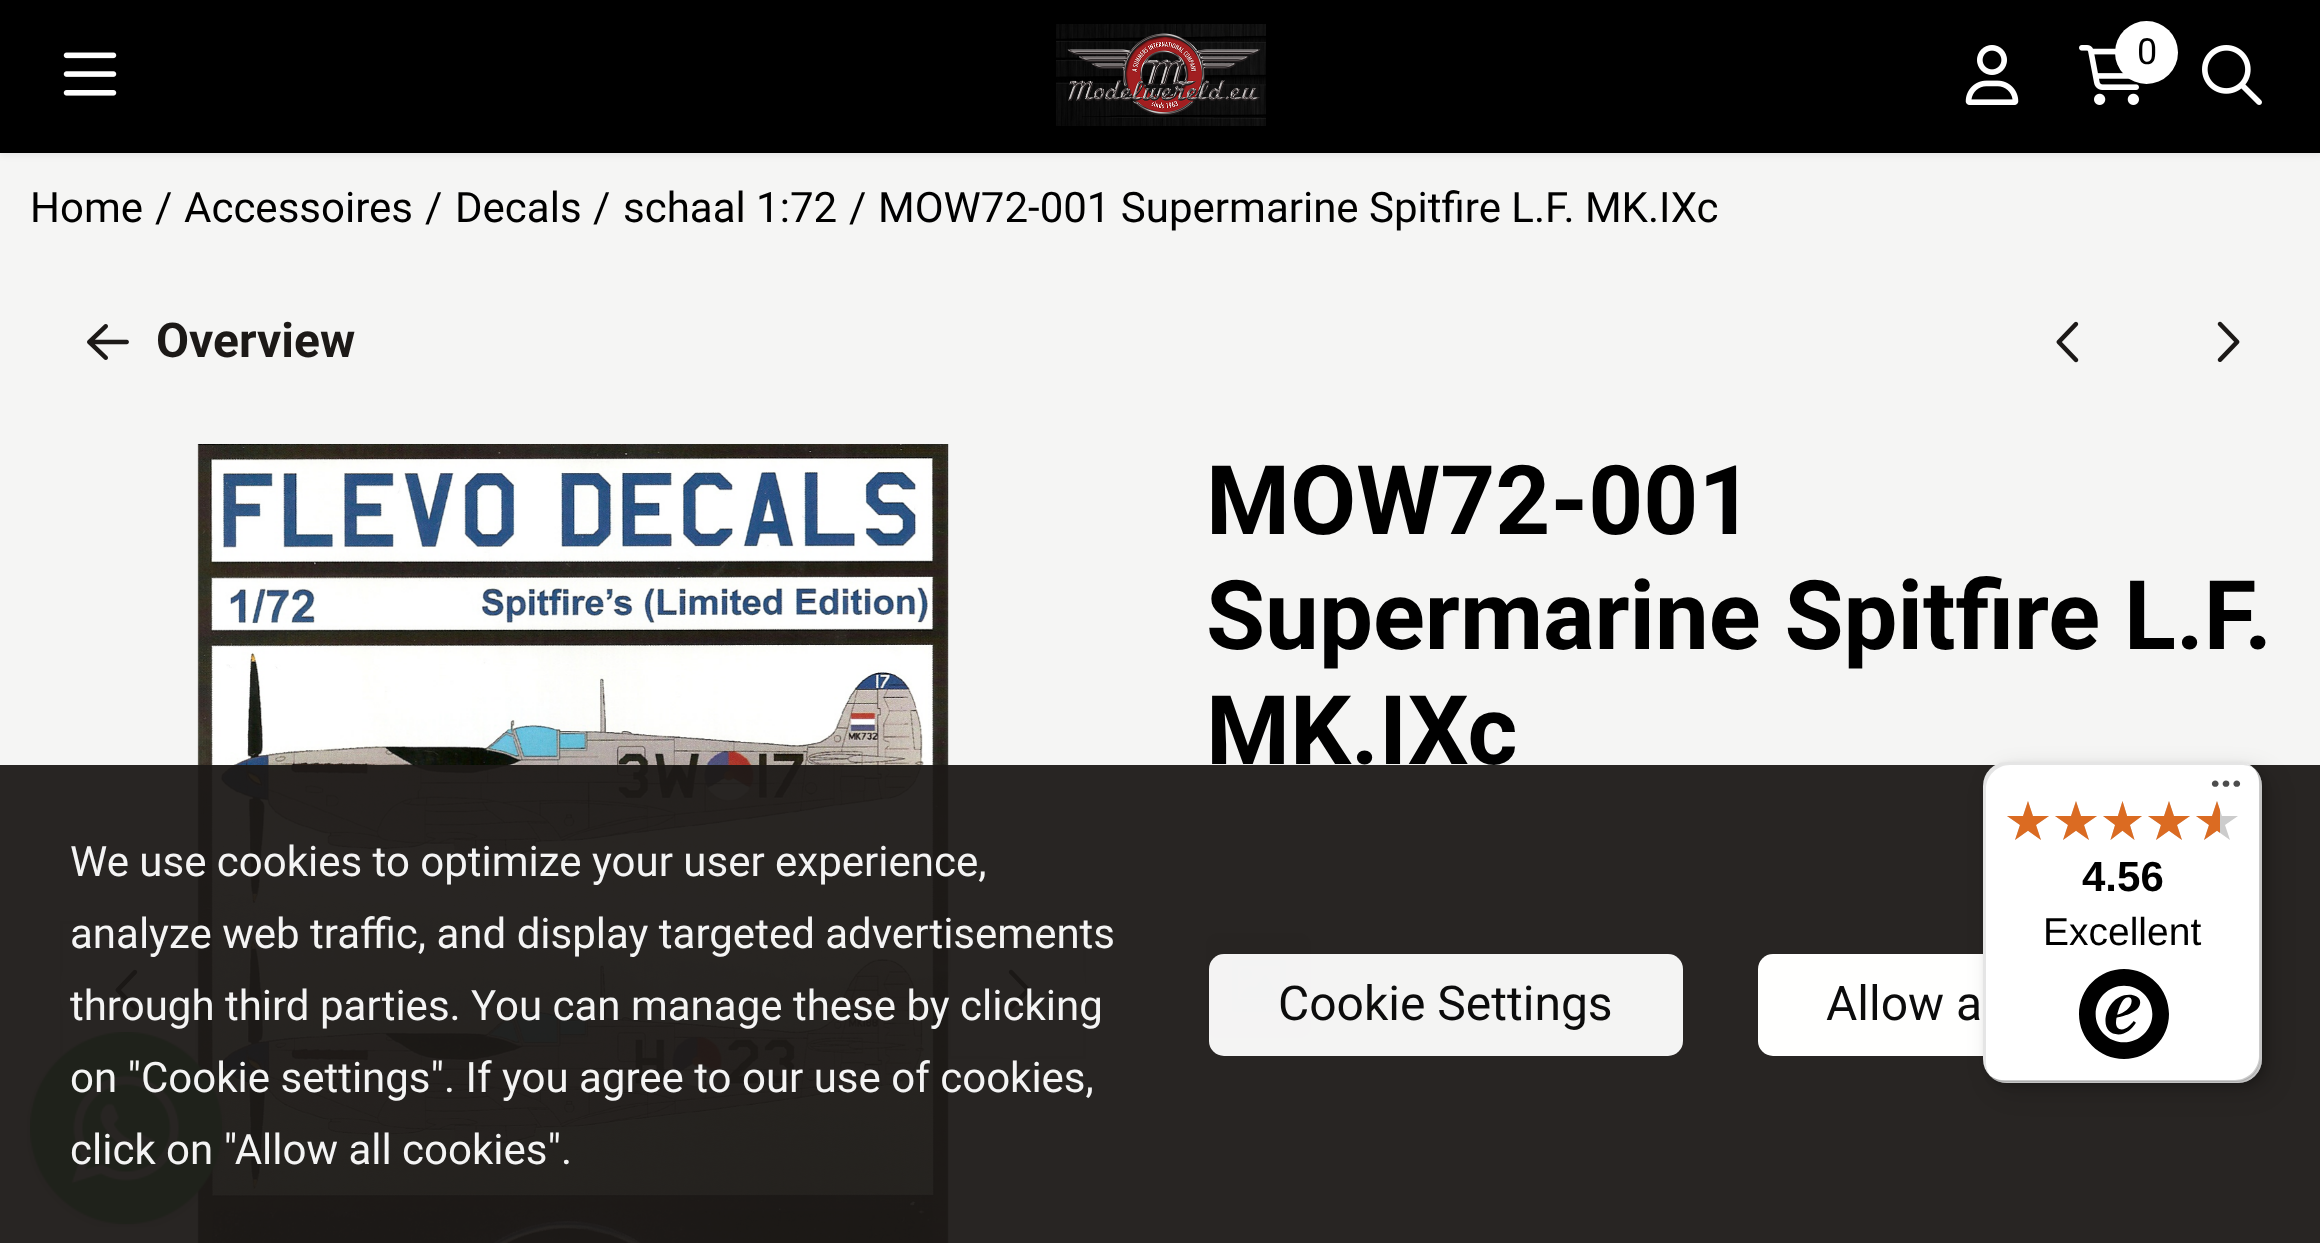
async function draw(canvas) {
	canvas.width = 2320;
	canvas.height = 1243;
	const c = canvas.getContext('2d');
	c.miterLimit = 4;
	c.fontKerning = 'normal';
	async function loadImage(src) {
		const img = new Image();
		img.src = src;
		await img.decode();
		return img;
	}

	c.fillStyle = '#f5f5f4';
	c.fillRect(0, 0, 2320, 1243);
	c.fillStyle = '#0000000d';
	c.filter = 'blur(3px)';
	c.beginPath();
	c.rect(0, 3, 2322, 153);
	c.fill();
	c.filter = 'none';
	c.fillStyle = '#000';
	c.fillRect(0, 0, 2320, 153);
	c.drawImage(await loadImage('img1.png'), 63, 52, 54, 44);
	c.drawImage(await loadImage('img2.png'), 1056, 24, 210, 102);
	c.drawImage(await loadImage('img3.png'), 1965, 45, 54, 60);
	c.drawImage(await loadImage('img4.png'), 2079, 45, 60, 60);
	c.fillStyle = '#fff';
	c.beginPath();
	c.arc(2146.5, 52.5, 31.5, 0, 2 * Math.PI);
	c.fill();
	c.font = '36px Roboto';
	c.fillStyle = '#000';
	c.fillText('0', 2137, 64);
	c.drawImage(await loadImage('img5.png'), 2202, 45, 60, 60);
	c.font = '42px Roboto';
	for (const [text, x, y] of [
		['Home', 30, 222],
		['/', 155, 222],
		['Accessoires', 184, 222],
		['/', 425, 222],
		['Decals', 455, 222],
		['/', 593, 222],
		['schaal 1:72', 623, 222],
		['/', 849, 222],
		['MOW72-001 Supermarine Spitfire L.F. MK.IXc', 878, 222],
	]) {
		c.fillText(text, x, y);
	}
	c.drawImage(await loadImage('img6.png'), 87, 324, 42, 36);
	c.font = 'bold 48px Roboto';
	c.fillStyle = '#1c1917';
	c.fillText('Overview', 156, 357);
	c.drawImage(await loadImage('img7.png'), 2056, 321, 23, 42);
	c.drawImage(await loadImage('img8.png'), 2217, 321, 23, 41);
	c.drawImage(await loadImage('img10.png'), 197, 444, 752, 799);
	c.fillStyle = '#ffffffd9';
	c.beginPath();
	c.arc(129, 990, 69, 0, 2 * Math.PI);
	c.fill();
	c.strokeStyle = '#0000000d';
	c.lineWidth = 3;
	c.strokeRect(61.5, 922.5, 135, 135);
	c.drawImage(await loadImage('img9.png'), 115, 969, 23, 42);
	c.beginPath();
	c.arc(1017, 990, 69, 0, 2 * Math.PI);
	c.fill();
	c.strokeRect(949.5, 922.5, 135, 135);
	c.drawImage(await loadImage('img11.png'), 1008, 969, 23, 41);
	c.font = 'bold 96px Roboto';
	c.fillStyle = '#000';
	for (const [text, x, y] of [
		['MOW72-001', 1206, 534],
		['Supermarine Spitfire L.F.', 1206, 649],
		['MK.IXc', 1206, 764],
	]) {
		c.fillText(text, x, y);
	}
	c.drawImage(await loadImage('img12.png'), 1206, 933, 105, 105);
	c.drawImage(await loadImage('img20.png'), 27, 1031, 198, 196);
	c.fillStyle = '#1c1917f2';
	c.fillRect(0, 765, 2320, 478);
	c.font = '42px Roboto';
	c.fillStyle = '#f4f4f4';
	for (const [text, x, y] of [
		['We use cookies to optimize your user experience,', 70, 876],
		['analyze web traffic, and display targeted advertisements', 70, 948],
		['through third parties. You can manage these by clicking', 70, 1020],
		['on "Cookie settings". If you agree to our use of cookies,', 70, 1092],
		['click on "Allow all cookies".', 70, 1164],
	]) {
		c.fillText(text, x, y);
	}
	c.fillStyle = '#fffffff2';
	c.beginPath();
	c.roundRect(1209, 954, 474, 102, 15);
	c.fill();
	c.font = '48px Roboto';
	c.fillStyle = '#0c0c0c';
	c.fillText('Cookie Settings', 1278, 1020);
	c.fillStyle = '#fffffe';
	c.beginPath();
	c.roundRect(1758, 954, 495, 102, 15);
	c.fill();
	c.fillStyle = '#0c0c0c';
	c.fillText('Allow a', 1826, 1020);
	c.fillStyle = '#00000026';
	c.filter = 'blur(12px)';
	c.beginPath();
	c.roundRect(1992, 771, 279, 321, 24);
	c.fill();
	c.filter = 'none';
	c.filter = 'blur(3px)';
	c.beginPath();
	c.roundRect(1986, 765, 279, 321, 24);
	c.fill();
	c.filter = 'none';
	c.fillStyle = '#fff';
	c.beginPath();
	c.roundRect(1983, 762, 279, 321, 24);
	c.fill();
	c.fillStyle = '#0000001a';
	c.beginPath();
	c.moveTo(2010, 765);
	c.lineTo(2241, 765);
	c.bezierCurveTo(2247, 765, 2253, 767, 2257, 771);
	c.bezierCurveTo(2252, 766, 2246, 762, 2238, 762);
	c.lineTo(2007, 762);
	c.bezierCurveTo(1994, 762, 1983, 773, 1983, 786);
	c.lineTo(1983, 1059);
	c.bezierCurveTo(1983, 1067, 1987, 1073, 1992, 1078);
	c.bezierCurveTo(1988, 1074, 1986, 1068, 1986, 1062);
	c.lineTo(1986, 789);
	c.bezierCurveTo(1986, 776, 1997, 765, 2010, 765);
	c.closePath();
	c.fill();
	c.fillStyle = '#00000033';
	c.beginPath();
	c.moveTo(1988, 1074);
	c.bezierCurveTo(1993, 1079, 1999, 1083, 2007, 1083);
	c.lineTo(2238, 1083);
	c.bezierCurveTo(2251, 1083, 2262, 1072, 2262, 1059);
	c.lineTo(2262, 786);
	c.bezierCurveTo(2262, 778, 2258, 772, 2253, 767);
	c.bezierCurveTo(2257, 771, 2259, 777, 2259, 783);
	c.lineTo(2259, 1056);
	c.bezierCurveTo(2259, 1069, 2248, 1080, 2235, 1080);
	c.lineTo(2004, 1080);
	c.bezierCurveTo(1998, 1080, 1992, 1078, 1988, 1074);
	c.closePath();
	c.fill();
	c.fillStyle = '#32323233';
	c.beginPath();
	c.moveTo(1988, 1074);
	c.bezierCurveTo(1993, 1080, 1999, 1083, 2007, 1083);
	c.lineTo(2238, 1083);
	c.bezierCurveTo(2251, 1083, 2262, 1072, 2262, 1059);
	c.lineTo(2262, 786);
	c.bezierCurveTo(2262, 778, 2259, 772, 2253, 767);
	c.bezierCurveTo(2257, 772, 2260, 778, 2260, 784);
	c.lineTo(2260, 1057);
	c.bezierCurveTo(2260, 1070, 2249, 1081, 2236, 1081);
	c.lineTo(2005, 1081);
	c.bezierCurveTo(1999, 1081, 1993, 1078, 1988, 1074);
	c.closePath();
	c.fill();
	c.fillStyle = '#ffffff4d';
	c.beginPath();
	c.moveTo(1991, 1077);
	c.bezierCurveTo(1995, 1081, 2001, 1083, 2007, 1083);
	c.lineTo(2238, 1083);
	c.bezierCurveTo(2251, 1083, 2262, 1072, 2262, 1059);
	c.lineTo(2262, 786);
	c.bezierCurveTo(2262, 779, 2259, 773, 2255, 769);
	c.bezierCurveTo(2258, 773, 2260, 778, 2260, 784);
	c.lineTo(2260, 1058);
	c.bezierCurveTo(2260, 1071, 2250, 1082, 2236, 1082);
	c.lineTo(2006, 1082);
	c.bezierCurveTo(2000, 1082, 1995, 1080, 1991, 1077);
	c.closePath();
	c.fill();
	c.drawImage(await loadImage('img13.png'), 2211, 780, 30, 7);
	c.drawImage(await loadImage('img14.png'), 2007, 801, 42, 39);
	c.drawImage(await loadImage('img14.png'), 2055, 801, 42, 39);
	c.drawImage(await loadImage('img15.png'), 2103, 801, 39, 39);
	c.drawImage(await loadImage('img14.png'), 2148, 801, 42, 39);
	c.drawImage(await loadImage('img14.png'), 2196, 801, 42, 39);
	c.drawImage(await loadImage('img16.png'), 2007, 801, 42, 39);
	c.drawImage(await loadImage('img16.png'), 2055, 801, 42, 39);
	c.drawImage(await loadImage('img17.png'), 2103, 801, 39, 39);
	c.drawImage(await loadImage('img16.png'), 2148, 801, 42, 39);
	c.drawImage(await loadImage('img18.png'), 2196, 801, 24, 39);
	c.font = 'bold 42px Liberation Sans';
	c.fillStyle = '#000';
	c.fillText('4.56', 2082, 891);
	c.font = '39px Liberation Sans';
	c.fillText('Excellent', 2043, 945);
	c.drawImage(await loadImage('img19.png'), 2079, 969, 90, 90);
}

draw(document.querySelector('canvas'));
